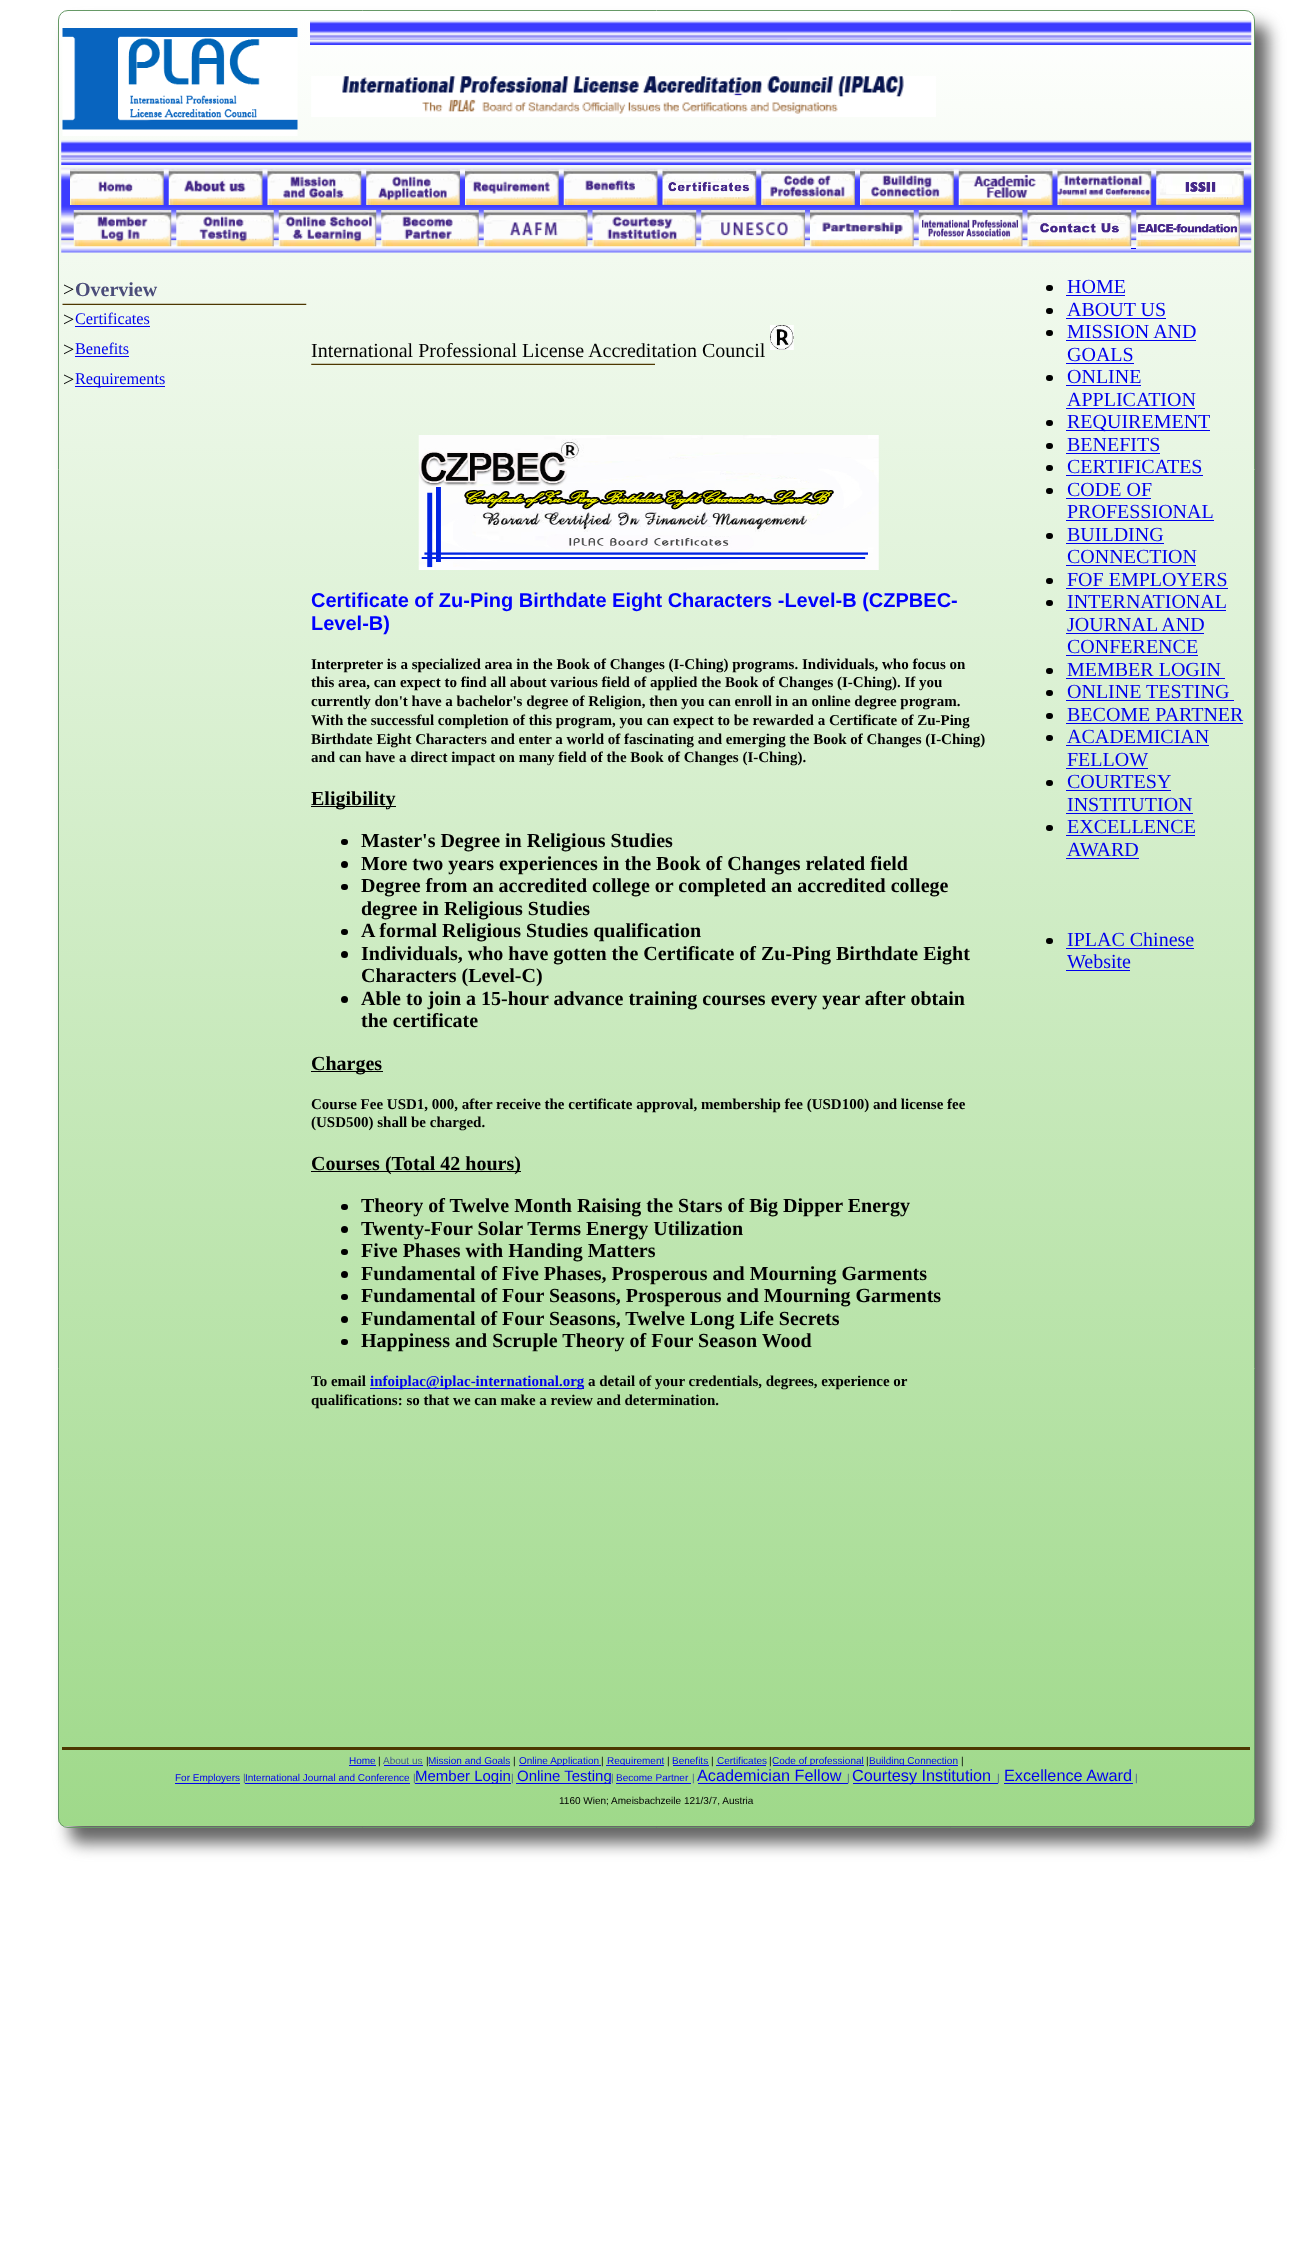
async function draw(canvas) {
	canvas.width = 1312;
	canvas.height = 2256;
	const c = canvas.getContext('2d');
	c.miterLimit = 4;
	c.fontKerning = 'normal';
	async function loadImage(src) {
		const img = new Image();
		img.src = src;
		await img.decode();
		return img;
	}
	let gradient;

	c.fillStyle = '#fff';
	c.fillRect(0, 0, 1312, 2256);
	c.fillStyle = '#666';
	c.filter = 'blur(8px)';
	c.beginPath();
	c.roundRect(70, 25, 1198, 1818, 10);
	c.fill();
	c.filter = 'none';
	c.save();
	c.beginPath();
	c.roundRect(58, 10, 1197, 1818, 10);
	c.clip();
	gradient = c.createLinearGradient(59, 11, 59, 1826);
	gradient.addColorStop(0, '#fff');
	gradient.addColorStop(1, '#9fd98a');
	c.fillStyle = gradient;
	c.fillRect(58, 11, 1197, 1815);
	c.restore();
	c.beginPath();
	c.roundRect(58.5, 10.5, 1196, 1817, 9.5);
	c.strokeStyle = '#696';
	c.stroke();
	c.drawImage(await loadImage('img1.png'), 62, 28, 236, 108);
	c.drawImage(await loadImage('img2.png'), 310, 20, 942, 25);
	c.drawImage(await loadImage('img3.png'), 311, 76, 625, 41);
	c.drawImage(await loadImage('img4.png'), 61, 140, 1191, 25);
	c.drawImage(await loadImage('img5.png'), 61, 167, 1191, 86);
	c.drawImage(await loadImage('img6.png'), 70, 168, 94, 37);
	c.drawImage(await loadImage('img7.png'), 168, 168, 95, 37);
	c.drawImage(await loadImage('img8.png'), 267, 168, 95, 37);
	c.drawImage(await loadImage('img9.png'), 366, 168, 94, 37);
	c.drawImage(await loadImage('img10.png'), 465, 168, 94, 37);
	c.drawImage(await loadImage('img11.png'), 563, 168, 95, 37);
	c.drawImage(await loadImage('img12.png'), 662, 168, 95, 37);
	c.drawImage(await loadImage('img13.png'), 761, 168, 94, 37);
	c.drawImage(await loadImage('img14.png'), 860, 168, 94, 37);
	c.drawImage(await loadImage('img15.png'), 958, 168, 95, 37);
	c.drawImage(await loadImage('img16.png'), 1057, 168, 95, 37);
	c.drawImage(await loadImage('img17.png'), 1156, 168, 88, 37);
	c.drawImage(await loadImage('img18.png'), 73, 210, 99, 37);
	c.drawImage(await loadImage('img19.png'), 176, 210, 98, 37);
	c.drawImage(await loadImage('img20.png'), 278, 210, 99, 37);
	c.drawImage(await loadImage('img21.png'), 381, 210, 98, 37);
	c.drawImage(await loadImage('img22.png'), 483, 210, 105, 37);
	c.drawImage(await loadImage('img23.png'), 592, 210, 105, 37);
	c.drawImage(await loadImage('img24.png'), 701, 210, 104, 37);
	c.drawImage(await loadImage('img25.png'), 810, 210, 104, 37);
	c.drawImage(await loadImage('img26.png'), 918, 210, 105, 37);
	c.drawImage(await loadImage('img27.png'), 1027, 210, 105, 37);
	c.drawImage(await loadImage('img28.png'), 1136, 210, 104, 37);
	c.fillStyle = '#00e';
	c.fillRect(1131, 248, 5, 1);
	c.font = '20px Liberation Serif';
	c.fillStyle = '#000';
	c.fillText('>', 63, 296);
	c.font = 'bold 20px Liberation Serif';
	c.fillStyle = '#4b4d7a';
	c.fillText('Overview', 75, 296);
	c.drawImage(await loadImage('img29.png'), 62, 303, 245, 2);
	c.font = '20px Liberation Serif';
	c.fillStyle = '#000';
	c.fillText('>', 63, 326);
	c.font = '16.25px Liberation Serif';
	c.fillStyle = '#00e';
	c.fillText('Certificates', 75, 324);
	c.fillRect(75, 326, 75, 1);
	c.font = '20px Liberation Serif';
	c.fillStyle = '#000';
	c.fillText('>', 63, 356);
	c.font = '16.25px Liberation Serif';
	c.fillStyle = '#00e';
	c.fillText('Benefits', 75, 354);
	c.fillRect(75, 356, 54, 1);
	c.font = '20px Liberation Serif';
	c.fillStyle = '#000';
	c.fillText('>', 63, 386);
	c.fillStyle = '#00e';
	c.fillRect(75, 386, 90, 1);
	c.font = '16.25px Liberation Serif';
	c.fillText('Requirements', 75, 384);
	c.font = '20px Liberation Serif';
	c.fillStyle = '#000';
	c.fillText('International Professional License Accreditation Council', 311, 357);
	c.drawImage(await loadImage('img30.png'), 770, 325, 24, 25);
	c.drawImage(await loadImage('img31.png'), 311, 363, 344, 2);
	c.drawImage(await loadImage('img32.png'), 418, 435, 461, 135);
	c.font = 'bold 20px Liberation Sans';
	c.fillStyle = '#00f';
	c.fillText('Certificate of Zu-Ping Birthdate Eight Characters -Level-B (CZPBEC-', 311, 607);
	c.fillText('Level-B)', 311, 630);
	c.font = 'bold 15px Liberation Serif';
	c.fillStyle = '#000';
	for (const [text, x, y] of [
		['Interpreter is a specialized area in the Book of Changes (I-Ching) programs. Individuals, who focus on', 311, 669],
		['this area, can expect to find all about various field of applied the Book of Changes (I-Ching). If you', 311, 687],
		['currently don\'t have a bachelor\'s degree of Religion, then you can enroll in an online degree program.', 311, 706],
		['With the successful completion of this program, you can expect to be rewarded a Certificate of Zu-Ping', 311, 725],
		['Birthdate Eight Characters and enter a world of fascinating and emerging the Book of Changes (I-Ching)', 311, 744],
		['and can have a direct impact on many field of the Book of Changes (I-Ching).', 311, 762],
	]) {
		c.fillText(text, x, y);
	}
	c.fillRect(311, 806, 85, 1);
	c.font = 'bold 20px Liberation Serif';
	c.fillText('Eligibility', 311, 805);
	c.beginPath();
	c.roundRect(341, 839, 7, 6, 3);
	c.fill();
	c.fillText('Master\'s Degree in Religious Studies', 361, 847);
	c.beginPath();
	c.arc(344.5, 864.5, 3.5, 0, 2 * Math.PI);
	c.fill();
	c.fillText('More two years experiences in the Book of Changes related field', 361, 870);
	c.beginPath();
	c.roundRect(341, 884, 7, 6, 3);
	c.fill();
	c.fillText('Degree from an accredited college or completed an accredited college', 361, 892);
	c.fillText('degree in Religious Studies', 361, 915);
	c.beginPath();
	c.roundRect(341, 929, 7, 6, 3);
	c.fill();
	c.fillText('A formal Religious Studies qualification', 361, 937);
	c.beginPath();
	c.arc(344.5, 954.5, 3.5, 0, 2 * Math.PI);
	c.fill();
	c.fillText('Individuals, who have gotten the Certificate of Zu-Ping Birthdate Eight', 361, 960);
	c.fillText('Characters (Level-C)', 361, 982);
	c.beginPath();
	c.arc(344.5, 999.5, 3.5, 0, 2 * Math.PI);
	c.fill();
	c.fillText('Able to join a 15-hour advance training courses every year after obtain', 361, 1005);
	c.fillText('the certificate', 361, 1027);
	c.fillRect(311, 1071, 72, 1);
	c.fillText('Charges', 311, 1070);
	c.font = 'bold 15px Liberation Serif';
	c.fillText('Course Fee USD1, 000, after receive the certificate approval, membership fee (USD100) and license fee', 311, 1109);
	c.fillText('(USD500) shall be charged.', 311, 1127);
	c.fillRect(311, 1171, 210, 1);
	c.font = 'bold 20px Liberation Serif';
	c.fillText('Courses (Total 42 hours)', 311, 1170);
	c.beginPath();
	c.roundRect(341, 1204, 7, 6, 3);
	c.fill();
	c.fillText('Theory of Twelve Month Raising the Stars of Big Dipper Energy', 361, 1212);
	c.beginPath();
	c.arc(344.5, 1229.5, 3.5, 0, 2 * Math.PI);
	c.fill();
	c.fillText('Twenty-Four Solar Terms Energy Utilization', 361, 1235);
	c.beginPath();
	c.roundRect(341, 1249, 7, 6, 3);
	c.fill();
	c.fillText('Five Phases with Handing Matters', 361, 1257);
	c.beginPath();
	c.arc(344.5, 1274.5, 3.5, 0, 2 * Math.PI);
	c.fill();
	c.fillText('Fundamental of Five Phases, Prosperous and Mourning Garments', 361, 1280);
	c.beginPath();
	c.roundRect(341, 1294, 7, 6, 3);
	c.fill();
	c.fillText('Fundamental of Four Seasons, Prosperous and Mourning Garments', 361, 1302);
	c.beginPath();
	c.arc(344.5, 1319.5, 3.5, 0, 2 * Math.PI);
	c.fill();
	c.fillText('Fundamental of Four Seasons, Twelve Long Life Secrets', 361, 1325);
	c.beginPath();
	c.roundRect(341, 1339, 7, 6, 3);
	c.fill();
	c.fillText('Happiness and Scruple Theory of Four Season Wood', 361, 1347);
	c.font = 'bold 15px Liberation Serif';
	c.fillText('To email', 311, 1386);
	c.fillStyle = '#00e';
	c.fillRect(370, 1388, 214, 1);
	c.fillText('infoiplac@iplac-international.org', 370, 1386);
	c.fillStyle = '#000';
	c.fillText('a detail of your credentials, degrees, experience or', 588, 1386);
	c.fillText('qualifications: so that we can make a review and determination.', 311, 1405);
	c.beginPath();
	c.roundRect(1046, 285, 7, 6, 3);
	c.fill();
	c.font = '20px Liberation Serif';
	c.fillStyle = '#00e';
	c.fillText('HOME', 1067, 293);
	c.fillRect(1066, 295, 59, 1);
	c.fillStyle = '#000';
	c.beginPath();
	c.roundRect(1046, 308, 7, 6, 3);
	c.fill();
	c.fillStyle = '#00e';
	c.fillText('ABOUT US', 1067, 316);
	c.fillRect(1066, 318, 100, 1);
	c.fillStyle = '#000';
	c.beginPath();
	c.roundRect(1046, 330, 7, 6, 3);
	c.fill();
	c.fillStyle = '#00e';
	c.fillText('MISSION AND', 1067, 338);
	c.fillRect(1066, 340, 130, 1);
	c.fillText('GOALS', 1067, 361);
	c.fillRect(1066, 363, 68, 1);
	c.fillStyle = '#000';
	c.beginPath();
	c.roundRect(1046, 375, 7, 6, 3);
	c.fill();
	c.fillStyle = '#00e';
	c.fillText('ONLINE', 1067, 383);
	c.fillRect(1066, 385, 75, 1);
	c.fillText('APPLICATION', 1067, 406);
	c.fillRect(1066, 408, 129, 1);
	c.fillStyle = '#000';
	c.beginPath();
	c.roundRect(1046, 420, 7, 6, 3);
	c.fill();
	c.fillStyle = '#00e';
	c.fillRect(1066, 430, 144, 1);
	c.fillText('REQUIREMENT', 1067, 428);
	c.fillStyle = '#000';
	c.beginPath();
	c.roundRect(1046, 443, 7, 6, 3);
	c.fill();
	c.fillStyle = '#00e';
	c.fillText('BENEFITS', 1067, 451);
	c.fillRect(1066, 453, 94, 1);
	c.fillStyle = '#000';
	c.beginPath();
	c.roundRect(1046, 465, 7, 6, 3);
	c.fill();
	c.fillStyle = '#00e';
	c.fillText('CERTIFICATES', 1067, 473);
	c.fillRect(1066, 475, 137, 1);
	c.fillStyle = '#000';
	c.beginPath();
	c.roundRect(1046, 488, 7, 6, 3);
	c.fill();
	c.fillStyle = '#00e';
	c.fillText('CODE OF', 1067, 496);
	c.fillRect(1066, 498, 85, 1);
	c.fillText('PROFESSIONAL', 1067, 518);
	c.fillRect(1066, 520, 148, 1);
	c.fillStyle = '#000';
	c.beginPath();
	c.roundRect(1046, 533, 7, 6, 3);
	c.fill();
	c.fillStyle = '#00e';
	c.fillText('BUILDING', 1067, 541);
	c.fillRect(1066, 543, 98, 1);
	c.fillText('CONNECTION', 1067, 563);
	c.fillRect(1066, 565, 130, 1);
	c.fillStyle = '#000';
	c.beginPath();
	c.roundRect(1046, 578, 7, 6, 3);
	c.fill();
	c.fillStyle = '#00e';
	c.fillText('FOF EMPLOYERS', 1067, 586);
	c.fillRect(1066, 588, 162, 1);
	c.fillStyle = '#000';
	c.beginPath();
	c.roundRect(1046, 600, 7, 6, 3);
	c.fill();
	c.fillStyle = '#00e';
	c.fillText('INTERNATIONAL', 1067, 608);
	c.fillRect(1066, 610, 160, 1);
	c.fillText('JOURNAL AND', 1067, 631);
	c.fillRect(1066, 633, 138, 1);
	c.fillText('CONFERENCE', 1067, 653);
	c.fillRect(1066, 655, 132, 1);
	c.fillStyle = '#000';
	c.beginPath();
	c.roundRect(1046, 668, 7, 6, 3);
	c.fill();
	c.fillStyle = '#00e';
	c.fillText('MEMBER LOGIN', 1067, 676);
	c.fillRect(1066, 678, 159, 1);
	c.fillStyle = '#000';
	c.beginPath();
	c.roundRect(1046, 690, 7, 6, 3);
	c.fill();
	c.fillStyle = '#00e';
	c.fillText('ONLINE TESTING', 1067, 698);
	c.fillRect(1066, 700, 168, 1);
	c.fillStyle = '#000';
	c.beginPath();
	c.roundRect(1046, 713, 7, 6, 3);
	c.fill();
	c.fillStyle = '#00e';
	c.fillText('BECOME PARTNER', 1067, 721);
	c.fillRect(1066, 723, 177, 1);
	c.fillStyle = '#000';
	c.beginPath();
	c.roundRect(1046, 735, 7, 6, 3);
	c.fill();
	c.fillStyle = '#00e';
	c.fillText('ACADEMICIAN', 1067, 743);
	c.fillRect(1066, 745, 143, 1);
	c.fillText('FELLOW', 1067, 766);
	c.fillRect(1066, 768, 82, 1);
	c.fillStyle = '#000';
	c.beginPath();
	c.roundRect(1046, 780, 7, 6, 3);
	c.fill();
	c.fillStyle = '#00e';
	c.fillText('COURTESY', 1067, 788);
	c.fillRect(1066, 790, 105, 1);
	c.fillText('INSTITUTION', 1067, 811);
	c.fillRect(1066, 813, 127, 1);
	c.fillStyle = '#000';
	c.beginPath();
	c.roundRect(1046, 825, 7, 6, 3);
	c.fill();
	c.fillStyle = '#00e';
	c.fillText('EXCELLENCE', 1067, 833);
	c.fillRect(1066, 835, 129, 1);
	c.fillText('AWARD', 1067, 856);
	c.fillRect(1066, 858, 73, 1);
	c.fillStyle = '#000';
	c.beginPath();
	c.roundRect(1046, 938, 7, 6, 3);
	c.fill();
	c.fillStyle = '#00e';
	c.fillText('IPLAC Chinese', 1067, 946);
	c.fillRect(1066, 948, 128, 1);
	c.fillText('Website', 1067, 968);
	c.fillRect(1066, 970, 64, 1);
	c.fillStyle = '#4d3701';
	c.fillRect(62, 1747, 1188, 3);
	c.font = '10px Liberation Sans';
	c.fillStyle = '#00e';
	c.fillText('Home', 349, 1764);
	c.fillRect(349, 1765, 27, 1);
	c.fillStyle = '#000';
	c.fillText('|', 378, 1764);
	c.fillStyle = '#445c8d';
	c.fillText('About us', 383, 1764);
	c.fillStyle = '#00e';
	c.fillRect(384, 1765, 39, 1);
	c.fillStyle = '#000';
	c.fillText('|', 426, 1764);
	c.fillStyle = '#00e';
	c.fillRect(429, 1765, 81, 1);
	c.fillText('Mission and Goals', 428, 1764);
	c.fillStyle = '#000';
	c.fillText('|', 513, 1764);
	c.fillStyle = '#00e';
	c.fillRect(519, 1765, 82, 1);
	c.fillText('Online Application', 519, 1764);
	c.fillStyle = '#000';
	c.fillText('|', 601, 1764);
	c.fillStyle = '#00e';
	c.fillRect(606, 1765, 58, 1);
	c.fillText('Requirement', 607, 1764);
	c.fillStyle = '#000';
	c.fillText('|', 667, 1764);
	c.fillStyle = '#00e';
	c.fillText('Benefits', 672, 1764);
	c.fillRect(673, 1765, 36, 1);
	c.fillStyle = '#000';
	c.fillText('|', 711, 1764);
	c.fillStyle = '#00e';
	c.fillText('Certificates', 717, 1764);
	c.fillRect(716, 1765, 50, 1);
	c.fillStyle = '#000';
	c.fillText('|', 769, 1764);
	c.fillStyle = '#00e';
	c.fillRect(773, 1765, 91, 1);
	c.fillText('Code of professional', 772, 1764);
	c.fillStyle = '#000';
	c.fillText('|', 866, 1764);
	c.fillStyle = '#00e';
	c.fillRect(869, 1765, 89, 1);
	c.fillText('Building Connection', 869, 1764);
	c.fillStyle = '#000';
	c.fillText('|', 961, 1764);
	c.fillStyle = '#00e';
	c.fillRect(175, 1783, 65, 1);
	c.fillText('For Employers', 175, 1781);
	c.fillStyle = '#445c8d';
	c.fillText('|', 243, 1781);
	c.fillStyle = '#00e';
	c.fillRect(245, 1783, 165, 1);
	c.fillText('International Journal and Conference', 245, 1781);
	c.fillStyle = '#445c8d';
	c.fillText('|', 413, 1781);
	c.fillStyle = '#00e';
	c.fillRect(415, 1783, 96, 1);
	c.font = '15px Liberation Sans';
	c.fillText('Member Login', 415, 1781);
	c.font = '10px Liberation Sans';
	c.fillStyle = '#445c8d';
	c.fillText('|', 511, 1781);
	c.fillStyle = '#00e';
	c.fillRect(516, 1783, 95, 1);
	c.font = '15px Liberation Sans';
	c.fillText('Online Testing', 517, 1781);
	c.font = '10px Liberation Sans';
	c.fillStyle = '#445c8d';
	c.fillText('|', 611, 1781);
	c.fillStyle = '#00e';
	c.fillText('Become Partner', 616, 1781);
	c.fillRect(616, 1783, 75, 1);
	c.fillStyle = '#445c8d';
	c.fillText('|', 692, 1781);
	c.font = '16.25px Liberation Sans';
	c.fillStyle = '#00e';
	c.fillText('Academician Fellow', 697, 1781);
	c.fillRect(698, 1783, 150, 1);
	c.font = '10px Liberation Sans';
	c.fillStyle = '#445c8d';
	c.fillText('|', 847, 1781);
	c.fillStyle = '#00e';
	c.fillRect(853, 1783, 145, 1);
	c.font = '16.25px Liberation Sans';
	c.fillText('Courtesy Institution', 852, 1781);
	c.font = '10px Liberation Sans';
	c.fillStyle = '#445c8d';
	c.fillText('|', 997, 1781);
	c.font = '16.25px Liberation Sans';
	c.fillStyle = '#00e';
	c.fillText('Excellence Award', 1004, 1781);
	c.font = '10px Liberation Sans';
	c.fillStyle = '#445c8d';
	c.fillText('|', 1135, 1781);
	c.fillStyle = '#00e';
	c.fillRect(1004, 1783, 129, 1);
	c.fillStyle = '#000';
	c.fillText('1160 Wien; Ameisbachzeile 121/3/7, Austria', 559, 1804);
}

draw(document.querySelector('canvas'));
